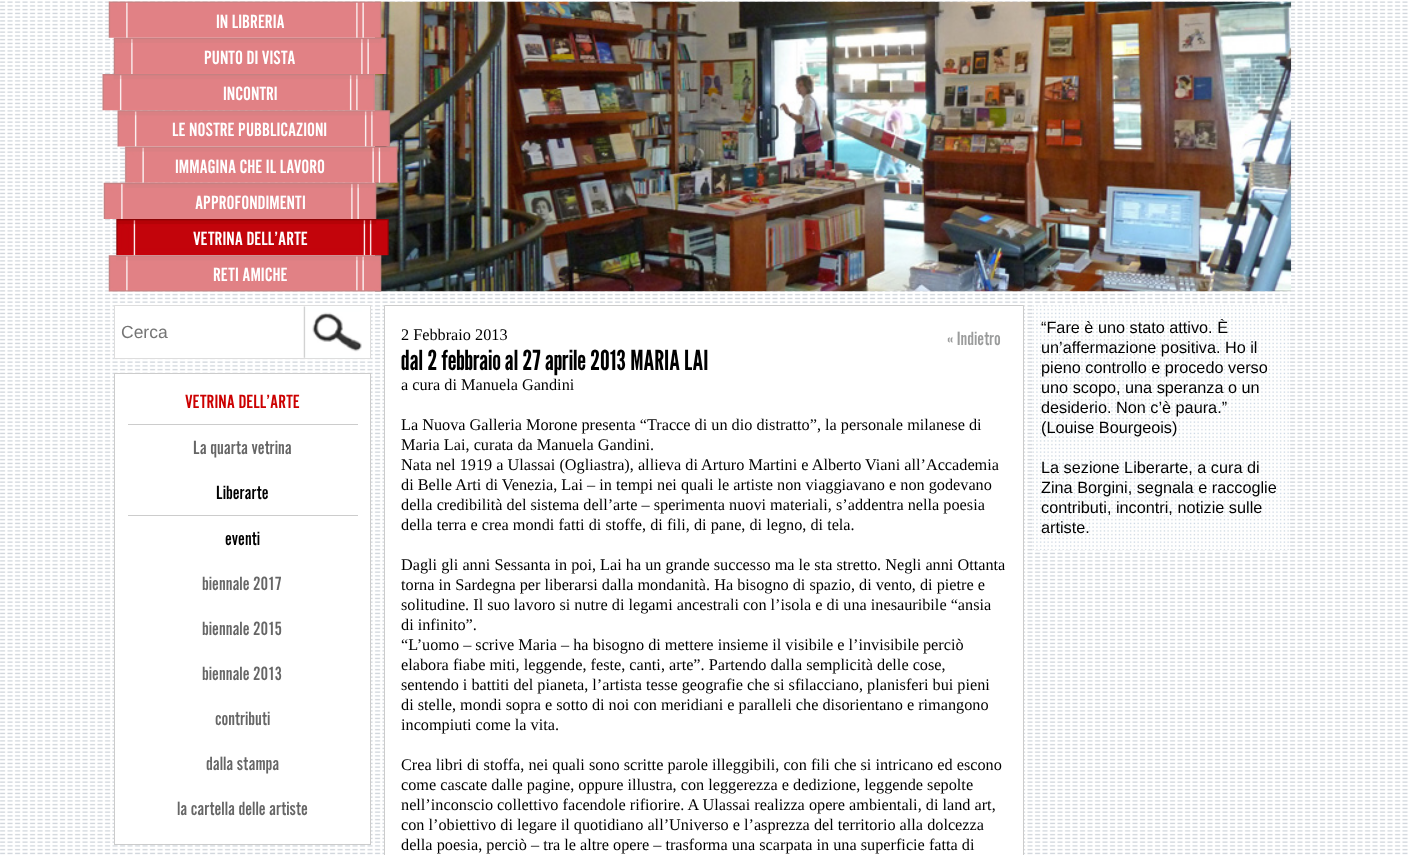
async function draw(canvas) {
	canvas.width = 1409;
	canvas.height = 855;
	const c = canvas.getContext('2d');
	c.miterLimit = 4;
	c.fontKerning = 'normal';
	async function loadImage(src) {
		const img = new Image();
		img.src = src;
		await img.decode();
		return img;
	}

	c.fillStyle = '#fff';
	c.fillRect(0, 0, 1409, 855);
	c.drawImage(await loadImage('img1.png'), 0, 0, 1409, 855);
	c.drawImage(await loadImage('img10.png'), 375, 1, 917, 291);
	c.drawImage(await loadImage('img2.png'), 108, 1, 274, 37);
	c.font = '20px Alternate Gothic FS';
	c.fillText('IN LIBRERIA', 216, 28);
	c.drawImage(await loadImage('img3.png'), 113, 37, 274, 37);
	c.fillText('PUNTO DI VISTA', 204, 64);
	c.drawImage(await loadImage('img4.png'), 102, 74, 274, 37);
	c.fillText('INCONTRI', 223, 100);
	c.drawImage(await loadImage('img5.png'), 117, 110, 274, 37);
	c.fillText('LE NOSTRE PUBBLICAZIONI', 172, 136);
	c.drawImage(await loadImage('img6.png'), 124, 146, 274, 37);
	c.fillText('IMMAGINA CHE IL LAVORO', 175, 173);
	c.drawImage(await loadImage('img7.png'), 103, 182, 274, 37);
	c.fillText('APPROFONDIMENTI', 195, 209);
	c.drawImage(await loadImage('img8.png'), 116, 219, 273, 37);
	c.fillText('VETRINA DELL’ARTE', 193, 245);
	c.drawImage(await loadImage('img9.png'), 108, 255, 274, 37);
	c.fillText('RETI AMICHE', 213, 281);
	c.fillRect(115, 306, 255, 52);
	c.drawImage(await loadImage('img11.png'), 303, 306, 59, 52);
	c.strokeStyle = '#ddd';
	c.strokeRect(114.5, 305.5, 256, 53);
	c.font = '17.5px Liberation Sans';
	c.fillStyle = '#757575';
	c.fillText('Cerca', 121, 338);
	c.fillStyle = '#fff';
	c.fillRect(115, 374, 255, 469);
	c.strokeStyle = '#ccc';
	c.strokeRect(114.5, 373.5, 256, 471);
	c.fillStyle = '#ccc';
	c.fillRect(128, 424, 230, 1);
	c.font = '20px Alternate Gothic FS';
	c.fillStyle = '#c00';
	c.fillText('VETRINA DELL’ARTE', 185, 408);
	c.fillStyle = '#666';
	c.fillText('La quarta vetrina', 193, 454);
	c.fillStyle = '#000';
	c.fillText('Liberarte', 216, 499);
	c.fillStyle = '#ccc';
	c.fillRect(128, 515, 230, 1);
	c.fillStyle = '#000';
	c.fillText('eventi', 225, 545);
	c.fillStyle = '#666';
	for (const [text, x, y] of [
		['biennale 2017', 202, 590],
		['biennale 2015', 202, 635],
		['biennale 2013', 202, 680],
		['contributi', 215, 725],
		['dalla stampa', 206, 770],
		['la cartella delle artiste', 177, 815],
	]) {
		c.fillText(text, x, y);
	}
	c.fillStyle = '#fff';
	c.beginPath();
	c.rect(384.5, 305.5, 639, 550);
	c.fill();
	c.stroke();
	c.font = '16.25px Liberation Serif';
	c.fillStyle = '#000';
	c.fillText('2 Febbraio 2013', 401, 340);
	c.font = '20px Alternate Gothic FS';
	c.fillStyle = '#9b9c9c';
	c.fillText('« Indietro', 947, 345);
	c.font = '27.5px League Gothic';
	c.fillStyle = '#000';
	c.fillText('dal 2 febbraio al 27 aprile 2013 MARIA LAI', 401, 370);
	c.font = '16.25px Liberation Serif';
	for (const [text, x, y] of [
		['a cura di Manuela Gandini', 401, 390],
		['La Nuova Galleria Morone presenta “Tracce di un dio distratto”, la personale milanese di', 401, 430],
		['Maria Lai, curata da Manuela Gandini.', 401, 450],
		['Nata nel 1919 a Ulassai (Ogliastra), allieva di Arturo Martini e Alberto Viani all’Accademia', 401, 470],
		['di Belle Arti di Venezia, Lai – in tempi nei quali le artiste non viaggiavano e non godevano', 401, 490],
		['della credibilità del sistema dell’arte – sperimenta nuovi materiali, s’addentra nella poesia', 401, 510],
		['della terra e crea mondi fatti di stoffe, di fili, di pane, di legno, di tela.', 401, 530],
		['Dagli gli anni Sessanta in poi, Lai ha un grande successo ma le sta stretto. Negli anni Ottanta', 401, 570],
		['torna in Sardegna per liberarsi dalla mondanità. Ha bisogno di spazio, di vento, di pietre e', 401, 590],
		['solitudine. Il suo lavoro si nutre di legami ancestrali con l’isola e di una inesauribile “ansia', 401, 610],
		['di infinito”.', 401, 630],
		['“L’uomo – scrive Maria – ha bisogno di mettere insieme il visibile e l’invisibile perciò', 401, 650],
		['elabora fiabe miti, leggende, feste, canti, arte”. Partendo dalla semplicità delle cose,', 401, 670],
		['sentendo i battiti del pianeta, l’artista tesse geografie che si sfilacciano, planisferi bui pieni', 401, 690],
		['di stelle, mondi sopra e sotto di noi con meridiani e paralleli che disorientano e rimangono', 401, 710],
		['incompiuti come la vita.', 401, 730],
		['Crea libri di stoffa, nei quali sono scritte parole illeggibili, con fili che si intricano ed escono', 401, 770],
		['come cascate dalle pagine, oppure illustra, con leggerezza e dedizione, leggende sepolte', 401, 790],
		['nell’inconscio collettivo facendole rifiorire. A Ulassai realizza opere ambientali, di land art,', 401, 810],
		['con l’obiettivo di legare il quotidiano all’Universo e l’asprezza del territorio alla dolcezza', 401, 830],
		['della poesia, perciò – tra le altre opere – trasforma una scarpata in una superficie fatta di', 401, 850],
	]) {
		c.fillText(text, x, y);
	}
	c.drawImage(await loadImage('img12.png'), 1033, 305, 256, 245);
	c.font = '16.25px Liberation Sans';
	for (const [text, x, y] of [
		['“Fare è uno stato attivo. È', 1041, 333],
		['un’affermazione positiva. Ho il', 1041, 353],
		['pieno controllo e procedo verso', 1041, 373],
		['uno scopo, una speranza o un', 1041, 393],
		['desiderio. Non c’è paura.”', 1041, 413],
		['(Louise Bourgeois)', 1041, 433],
		['La sezione Liberarte, a cura di', 1041, 473],
		['Zina Borgini, segnala e raccoglie', 1041, 493],
		['contributi, incontri, notizie sulle', 1041, 513],
		['artiste.', 1041, 533],
	]) {
		c.fillText(text, x, y);
	}
}

draw(document.querySelector('canvas'));
